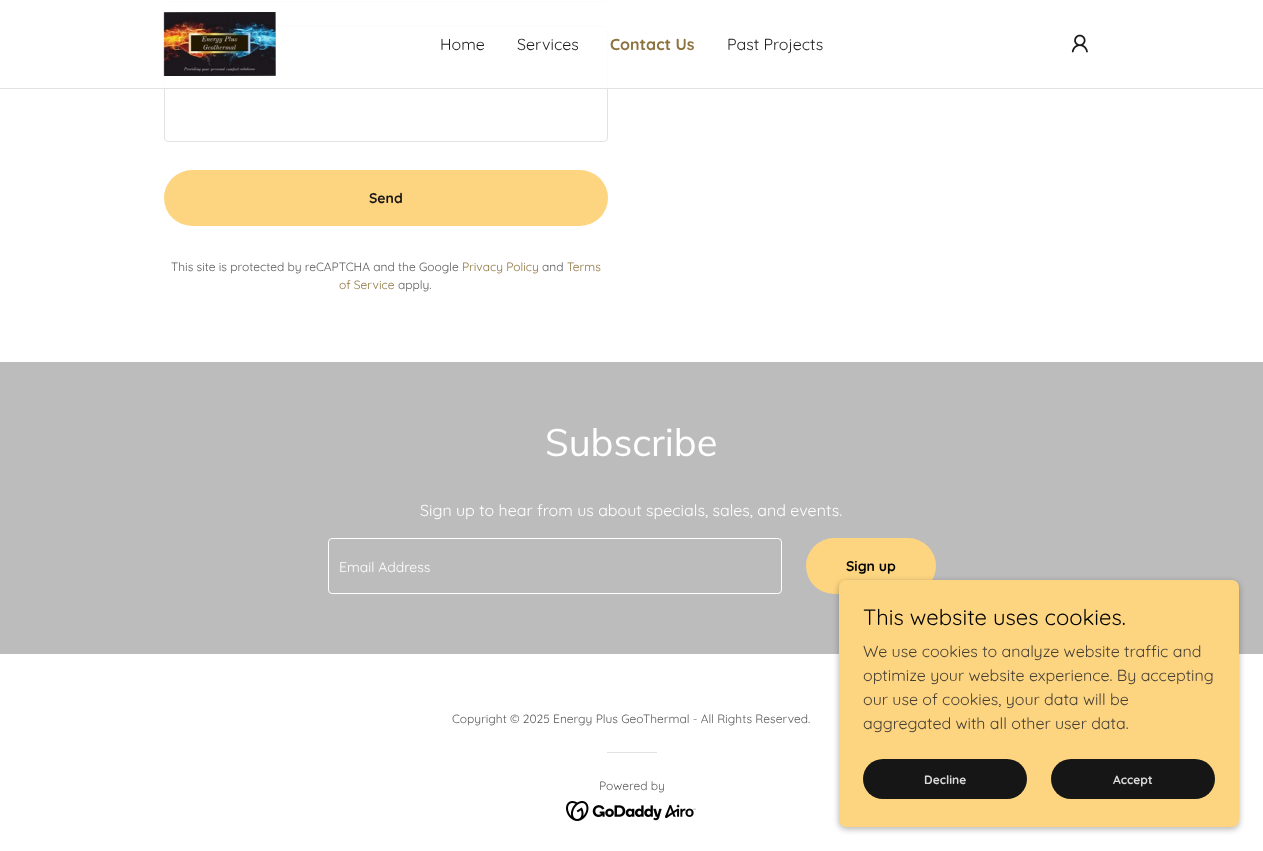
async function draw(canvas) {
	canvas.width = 1263;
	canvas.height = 851;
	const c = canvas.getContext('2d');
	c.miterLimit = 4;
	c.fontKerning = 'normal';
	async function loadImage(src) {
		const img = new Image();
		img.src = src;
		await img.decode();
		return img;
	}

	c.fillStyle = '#fff';
	c.fillRect(0, 0, 1263, 851);
	c.beginPath();
	c.roundRect(164.5, -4.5, 443, 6, 3.5);
	c.strokeStyle = '#e2e2e2';
	c.stroke();
	c.beginPath();
	c.roundRect(164.5, 26.5, 443, 115, 3.5);
	c.stroke();
	c.fillStyle = '#ffffffe6';
	c.fillRect(164, 0, 444, 88);
	c.drawImage(await loadImage('img1.png'), 163, 12, 113, 64);
	c.font = '16px Quicksand';
	c.fillStyle = '#1b1b1b';
	c.fillText('Home', 440, 50);
	c.fillText('Services', 517, 50);
	c.font = 'bold 16px Quicksand';
	c.fillStyle = '#8c733e';
	c.fillText('Contact Us', 610, 50);
	c.font = '16px Quicksand';
	c.fillStyle = '#1b1b1b';
	c.fillText('Past Projects', 727, 50);
	c.drawImage(await loadImage('img2.png'), 1071, 34, 17, 19);
	c.fillStyle = '#e2e2e2';
	c.fillRect(0, 88, 1263, 1);
	c.fillStyle = '#fdd581';
	c.beginPath();
	c.roundRect(164, 170, 444, 56, 28);
	c.fill();
	c.font = 'bold 14px Quicksand';
	c.fillStyle = '#161514';
	c.fillText('Send', 369, 203);
	c.font = '12px Quicksand';
	c.fillStyle = '#595959';
	c.fillText('This site is protected by reCAPTCHA and the Google', 171, 271);
	c.fillStyle = '#8c733e';
	c.fillText('Privacy Policy', 462, 271);
	c.fillStyle = '#595959';
	c.fillText('and', 542, 271);
	c.fillStyle = '#8c733e';
	c.fillText('Terms', 567, 271);
	c.fillText('of Service', 339, 289);
	c.fillStyle = '#595959';
	c.fillText('apply.', 398, 289);
	c.fillStyle = '#bcbcbc';
	c.fillRect(0, 362, 1263, 292);
	c.font = '38px Muli';
	c.fillStyle = '#fff';
	c.fillText('Subscribe', 545, 456);
	c.font = '16px Quicksand';
	c.fillText('Sign up to hear from us about specials, sales, and events.', 420, 516);
	c.beginPath();
	c.roundRect(328.5, 538.5, 453, 55, 3.5);
	c.strokeStyle = '#fff';
	c.stroke();
	c.font = '14px Quicksand';
	c.fillText('Email Address', 339, 572);
	c.fillStyle = '#fdd581';
	c.beginPath();
	c.roundRect(806, 538, 130, 56, 28);
	c.fill();
	c.font = 'bold 14px Quicksand';
	c.fillStyle = '#000';
	c.fillText('Sign up', 846, 571);
	c.font = '12px Quicksand';
	c.fillStyle = '#595959';
	c.fillText('Copyright © 2025 Energy Plus GeoThermal - All Rights Reserved.', 452, 723);
	c.fillStyle = '#e2e2e2';
	c.fillRect(607, 752, 50, 1);
	c.fillStyle = '#595959';
	c.fillText('Powered by', 599, 790);
	c.drawImage(await loadImage('img3.png'), 566, 801, 130, 20);
	c.fillStyle = '#0000004d';
	c.filter = 'blur(3px)';
	c.beginPath();
	c.roundRect(839, 582, 400, 247, 7);
	c.fill();
	c.filter = 'none';
	c.fillStyle = '#fdd581';
	c.beginPath();
	c.roundRect(839, 580, 400, 247, 7);
	c.fill();
	c.font = '22px Quicksand';
	c.fillStyle = '#000';
	c.fillText('This website uses cookies.', 863, 625);
	c.font = '16px Quicksand';
	c.fillStyle = '#463f34';
	for (const [text, x, y] of [
		['We use cookies to analyze website traffic and', 863, 657],
		['optimize your website experience. By accepting', 863, 681],
		['our use of cookies, your data will be', 863, 705],
		['aggregated with all other user data.', 863, 729],
	]) {
		c.fillText(text, x, y);
	}
	c.fillStyle = '#161616';
	c.beginPath();
	c.roundRect(863, 759, 164, 40, 20);
	c.fill();
	c.font = 'bold 12px Quicksand';
	c.fillStyle = '#dbdbdb';
	c.fillText('Decline', 924, 784);
	c.fillStyle = '#161616';
	c.beginPath();
	c.roundRect(1051, 759, 164, 40, 20);
	c.fill();
	c.fillStyle = '#dbdbdb';
	c.fillText('Accept', 1113, 784);
}

draw(document.querySelector('canvas'));
